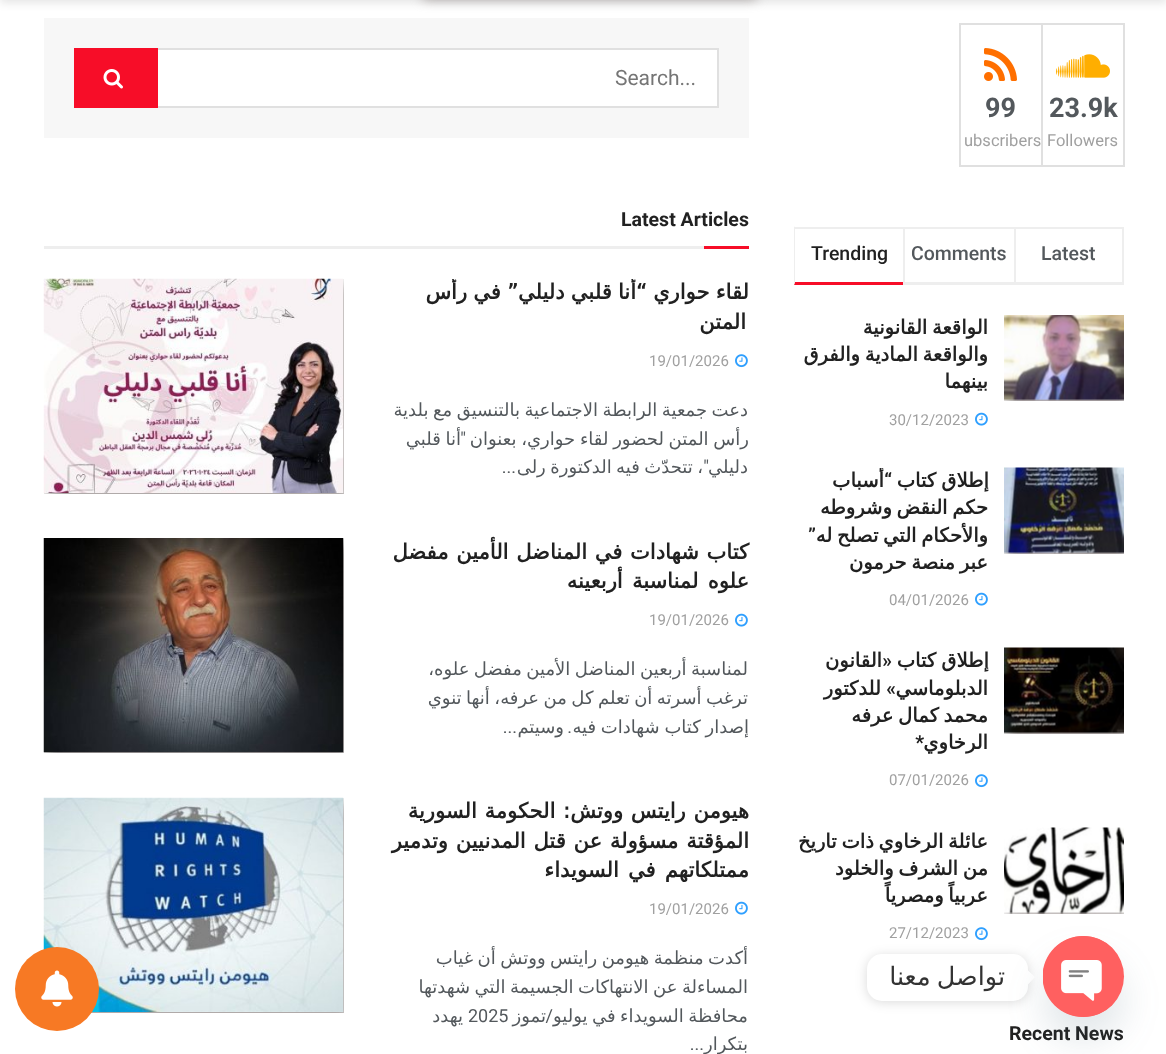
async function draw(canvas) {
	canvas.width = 1166;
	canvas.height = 1054;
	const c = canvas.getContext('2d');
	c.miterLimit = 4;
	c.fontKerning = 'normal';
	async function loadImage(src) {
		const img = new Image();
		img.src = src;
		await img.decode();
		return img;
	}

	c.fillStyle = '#fff';
	c.fillRect(0, 0, 1166, 1054);
	c.fillStyle = '#0000001a';
	c.filter = 'blur(4.5px)';
	c.beginPath();
	c.rect(0, -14, 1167, 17);
	c.fill();
	c.filter = 'none';
	c.fillStyle = '#a59f9e';
	c.filter = 'blur(6px)';
	c.beginPath();
	c.rect(423, -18, 333, 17);
	c.fill();
	c.filter = 'none';
	c.strokeStyle = '#e0e0e0';
	c.lineWidth = 2;
	c.strokeRect(1042, 24, 82, 142);
	c.drawImage(await loadImage('img1.png'), 1056, 54, 54, 24);
	c.font = 'bold 27px Roboto';
	c.fillStyle = '#53585c';
	c.fillText('23.9k', 1049, 117);
	c.font = '16.5px Roboto';
	c.fillStyle = '#a0a0a0';
	c.fillText('Followers', 1047, 146);
	c.strokeRect(960, 24, 82, 142);
	c.drawImage(await loadImage('img2.png'), 984, 48, 33, 33);
	c.font = 'bold 27px Roboto';
	c.fillStyle = '#53585c';
	c.fillText('99', 985, 117);
	c.font = '16.5px Roboto';
	c.fillStyle = '#a0a0a0';
	c.fillText('ubscribers', 964, 146);
	for (const [x, y, w, h, color] of [
		[794, 227, 330, 2, '#eee'],
		[1122, 227, 2, 58, '#eee'],
		[1014, 282, 110, 3, '#eee'],
		[1014, 227, 2, 58, '#eee'],
	]) {
		c.fillStyle = color;
		c.fillRect(x, y, w, h);
	}
	c.font = '500 19.5px Roboto';
	c.fillStyle = '#53585c';
	c.fillText('Latest', 1041, 260);
	c.fillStyle = '#eee';
	c.fillRect(903, 282, 111, 3);
	c.fillRect(903, 227, 2, 58);
	c.fillStyle = '#53585c';
	c.fillText('Comments', 911, 260);
	c.fillStyle = '#f70d28';
	c.beginPath();
	c.moveTo(903, 285);
	c.lineTo(794, 285);
	c.lineTo(795, 282);
	c.lineTo(903, 282);
	c.closePath();
	c.fill();
	c.fillStyle = '#eee';
	c.beginPath();
	c.moveTo(794, 285);
	c.lineTo(794, 226);
	c.lineTo(795, 228);
	c.lineTo(795, 282);
	c.closePath();
	c.fill();
	c.fillStyle = '#212121';
	c.fillText('Trending', 811, 260);
	c.fillStyle = '#f7f7f7';
	c.fillRect(1004, 399, 120, 2);
	c.save();
	c.beginPath();
	c.rect(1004, 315, 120, 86);
	c.clip();
	c.fillStyle = '#a59f9e';
	c.filter = 'blur(6px)';
	c.beginPath();
	c.rect(1008, 321, 120, 86);
	c.fill();
	c.filter = 'none';
	c.restore();
	c.drawImage(await loadImage('img3.png'), 1004, 315, 120, 86);
	c.wordSpacing = '-1.5px';
	c.direction = 'rtl';
	c.font = 'bold 19.5px DejaVu Sans';
	c.fillStyle = '#212121';
	c.fillText('الواقعة القانونية', 988, 334);
	c.fillText('والواقعة المادية والفرق', 988, 361);
	c.wordSpacing = '0px';
	c.fillText('بينهما', 988, 388);
	c.drawImage(await loadImage('img4.png'), 975, 412, 13, 14);
	c.direction = 'ltr';
	c.font = '15px Roboto';
	c.fillStyle = '#a0a0a0';
	c.fillText('30/12/2023', 889, 425);
	c.fillStyle = '#f7f7f7';
	c.fillRect(1004, 552, 120, 2);
	c.save();
	c.beginPath();
	c.rect(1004, 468, 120, 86);
	c.clip();
	c.fillStyle = '#a59f9e';
	c.filter = 'blur(6px)';
	c.beginPath();
	c.rect(1008, 474, 120, 86);
	c.fill();
	c.filter = 'none';
	c.restore();
	c.drawImage(await loadImage('img5.png'), 1004, 467, 120, 87);
	c.wordSpacing = '-1px';
	c.direction = 'rtl';
	c.font = 'bold 19.5px DejaVu Sans';
	c.fillStyle = '#212121';
	c.fillText('إطلاق كتاب', 989, 487);
	c.wordSpacing = '0px';
	c.font = 'bold 19.5px Roboto';
	c.fillText('“', 892, 487);
	c.save();
	c.beginPath();
	c.rect(794, 468, 330, 150);
	c.clip();
	c.font = 'bold 19.5px DejaVu Sans';
	c.fillText('أسباب', 884, 487);
	c.restore();
	c.wordSpacing = '-1.5px';
	c.font = 'bold 19.5px DejaVu Sans';
	c.fillText('حكم النقض وشروطه', 988, 514);
	c.fillText('والأحكام التي تصلح له', 988, 542);
	c.wordSpacing = '0px';
	c.font = 'bold 19.5px Roboto';
	c.fillText('”', 816, 542);
	c.wordSpacing = '-1.5px';
	c.font = 'bold 19.5px DejaVu Sans';
	c.fillText('عبر منصة حرمون', 988, 569);
	c.drawImage(await loadImage('img4.png'), 975, 592, 13, 14);
	c.wordSpacing = '0px';
	c.direction = 'ltr';
	c.font = '15px Roboto';
	c.fillStyle = '#a0a0a0';
	c.fillText('04/01/2026', 889, 605);
	c.fillStyle = '#f7f7f7';
	c.fillRect(1004, 732, 120, 2);
	c.save();
	c.beginPath();
	c.rect(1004, 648, 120, 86);
	c.clip();
	c.fillStyle = '#a59f9e';
	c.filter = 'blur(6px)';
	c.beginPath();
	c.rect(1008, 654, 120, 86);
	c.fill();
	c.filter = 'none';
	c.restore();
	c.drawImage(await loadImage('img6.png'), 1004, 647, 120, 87);
	c.wordSpacing = '-1px';
	c.direction = 'rtl';
	c.font = 'bold 19.5px DejaVu Sans';
	c.fillStyle = '#212121';
	c.fillText('إطلاق كتاب', 989, 667);
	c.wordSpacing = '0px';
	c.font = 'bold 19.5px Roboto';
	c.fillText('«', 892, 667);
	c.font = 'bold 19.5px DejaVu Sans';
	c.fillText('القانون', 882, 667);
	c.fillText('الدبلوماسي', 988, 695);
	c.font = 'bold 19.5px Roboto';
	c.fillText('»', 896, 695);
	c.font = 'bold 19.5px DejaVu Sans';
	c.fillText('للدكتور', 881, 695);
	c.wordSpacing = '-1.5px';
	c.fillText('محمد كمال عرفه', 988, 722);
	c.wordSpacing = '0px';
	c.fillText('الرخاوي', 988, 749);
	c.font = 'bold 19.5px Roboto';
	c.fillText('*', 924, 749);
	c.drawImage(await loadImage('img7.png'), 975, 774, 13, 14);
	c.direction = 'ltr';
	c.font = '15px Roboto';
	c.fillStyle = '#a0a0a0';
	c.fillText('07/01/2026', 889, 785);
	c.fillStyle = '#f7f7f7';
	c.fillRect(1004, 912, 120, 2);
	c.save();
	c.beginPath();
	c.rect(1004, 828, 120, 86);
	c.clip();
	c.fillStyle = '#a59f9e';
	c.filter = 'blur(6px)';
	c.beginPath();
	c.rect(1008, 834, 120, 86);
	c.fill();
	c.filter = 'none';
	c.restore();
	c.drawImage(await loadImage('img8.png'), 1004, 827, 120, 87);
	c.wordSpacing = '-1.5px';
	c.direction = 'rtl';
	c.font = 'bold 19.5px DejaVu Sans';
	c.fillStyle = '#212121';
	for (const [text, x, y] of [
		['عائلة الرخاوي ذات تاريخ', 988, 848],
		['من الشرف والخلود', 988, 875],
		['عربياً ومصرياً', 988, 902],
	]) {
		c.fillText(text, x, y);
	}
	c.drawImage(await loadImage('img7.png'), 975, 927, 13, 14);
	c.wordSpacing = '0px';
	c.direction = 'ltr';
	c.font = '15px Roboto';
	c.fillStyle = '#a0a0a0';
	c.fillText('27/12/2023', 889, 938);
	c.font = 'bold 19.5px Roboto';
	c.fillStyle = '#212121';
	c.fillText('Recent News', 1009, 1040);
	c.fillStyle = '#f7f7f7';
	c.fillRect(44, 18, 705, 120);
	c.fillStyle = '#fff';
	c.fillRect(158, 50, 559, 56);
	c.strokeRect(75, 49, 643, 58);
	c.font = '21px Roboto';
	c.fillStyle = '#757575';
	c.fillText('Search...', 615, 85);
	c.fillStyle = '#f70d28';
	c.fillRect(74, 48, 84, 60);
	c.drawImage(await loadImage('img9.png'), 103, 69, 20, 20);
	c.fillStyle = '#eee';
	c.fillRect(44, 246, 660, 3);
	c.font = 'bold 19.5px Roboto';
	c.fillStyle = '#212121';
	c.fillText('Latest Articles', 621, 226);
	c.fillStyle = '#f70d28';
	c.fillRect(704, 246, 45, 3);
	c.save();
	c.beginPath();
	c.rect(389, 279, 360, 204);
	c.clip();
	c.letterSpacing = '-0.4px';
	c.direction = 'rtl';
	c.font = 'bold 21px DejaVu Sans';
	c.fillStyle = '#212121';
	c.fillText('لقاء حواري “أنا قلبي دليلي” في رأس', 749, 299);
	c.restore();
	c.letterSpacing = '-0.4px';
	c.direction = 'rtl';
	c.font = 'bold 21px DejaVu Sans';
	c.fillStyle = '#212121';
	c.fillText('المتن', 746, 329);
	c.drawImage(await loadImage('img7.png'), 735, 354, 13, 14);
	c.letterSpacing = '0px';
	c.direction = 'ltr';
	c.font = '15px Roboto';
	c.fillStyle = '#a0a0a0';
	c.fillText('19/01/2026', 649, 366);
	c.wordSpacing = '-1.25px';
	c.direction = 'rtl';
	c.font = '18px DejaVu Sans';
	c.fillStyle = '#53585c';
	c.fillText('دعت جمعية الرابطة الاجتماعية بالتنسيق مع بلدية', 748, 416);
	c.wordSpacing = '-1px';
	c.fillText('رأس المتن لحضور لقاء حواري، بعنوان', 749, 445);
	c.wordSpacing = '0px';
	c.font = '18px Roboto';
	c.fillText('"', 466, 445);
	c.wordSpacing = '-1px';
	c.font = '18px DejaVu Sans';
	c.fillText('أنا قلبي', 461, 445);
	c.wordSpacing = '0px';
	c.fillText('دليلي', 748, 473);
	c.font = '18px Roboto';
	c.fillText('"', 709, 473);
	c.wordSpacing = '-1.25px';
	c.font = '18px DejaVu Sans';
	c.fillText('، تتحدّث فيه الدكتورة رلى', 703, 473);
	c.wordSpacing = '0px';
	c.font = '18px Roboto';
	c.fillText('...', 516, 473);
	c.fillStyle = '#f7f7f7';
	c.fillRect(44, 279, 300, 215);
	c.save();
	c.beginPath();
	c.rect(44, 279, 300, 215);
	c.clip();
	c.fillStyle = '#a59f9e';
	c.filter = 'blur(6px)';
	c.beginPath();
	c.rect(48, 285, 300, 215);
	c.fill();
	c.filter = 'none';
	c.restore();
	c.drawImage(await loadImage('img10.png'), 43, 278, 301, 215);
	c.letterSpacing = '-0.4px';
	c.wordSpacing = '1.5px';
	c.font = 'bold 21px DejaVu Sans';
	c.fillStyle = '#212121';
	c.fillText('كتاب شهادات في المناضل الأمين مفضل', 749, 559);
	c.wordSpacing = '3px';
	c.fillText('علوه لمناسبة أربعينه', 749, 588);
	c.drawImage(await loadImage('img4.png'), 735, 613, 13, 14);
	c.letterSpacing = '0px';
	c.wordSpacing = '0px';
	c.direction = 'ltr';
	c.font = '15px Roboto';
	c.fillStyle = '#a0a0a0';
	c.fillText('19/01/2026', 649, 625);
	c.wordSpacing = '-1.25px';
	c.direction = 'rtl';
	c.font = '18px DejaVu Sans';
	c.fillStyle = '#53585c';
	c.fillText('لمناسبة أربعين المناضل الأمين مفضل علوه،', 748, 675);
	c.fillText('ترغب أسرته أن تعلم كل من عرفه، أنها تنوي', 748, 704);
	c.wordSpacing = '-1px';
	c.fillText('إصدار كتاب شهادات فيه', 749, 733);
	c.wordSpacing = '0px';
	c.font = '18px Roboto';
	c.fillText('.', 572, 733);
	c.font = '18px DejaVu Sans';
	c.fillText('وسيتم', 564, 733);
	c.font = '18px Roboto';
	c.fillText('...', 517, 733);
	c.fillStyle = '#f7f7f7';
	c.fillRect(44, 539, 300, 214);
	c.save();
	c.beginPath();
	c.rect(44, 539, 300, 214);
	c.clip();
	c.fillStyle = '#a59f9e';
	c.filter = 'blur(6px)';
	c.beginPath();
	c.rect(48, 545, 300, 214);
	c.fill();
	c.filter = 'none';
	c.restore();
	c.drawImage(await loadImage('img11.png'), 43, 538, 301, 215);
	c.letterSpacing = '-0.4px';
	c.wordSpacing = '1.5px';
	c.font = 'bold 21px DejaVu Sans';
	c.fillStyle = '#212121';
	c.fillText('هيومن رايتس ووتش: الحكومة السورية', 749, 818);
	c.fillText('المؤقتة مسؤولة عن قتل المدنيين وتدمير', 749, 848);
	c.wordSpacing = '3px';
	c.fillText('ممتلكاتهم في السويداء', 749, 877);
	c.drawImage(await loadImage('img4.png'), 735, 901, 13, 14);
	c.letterSpacing = '0px';
	c.wordSpacing = '0px';
	c.direction = 'ltr';
	c.font = '15px Roboto';
	c.fillStyle = '#a0a0a0';
	c.fillText('19/01/2026', 649, 914);
	c.wordSpacing = '-1.25px';
	c.direction = 'rtl';
	c.font = '18px DejaVu Sans';
	c.fillStyle = '#53585c';
	c.fillText('أكدت منظمة هيومن رايتس ووتش أن غياب', 748, 964);
	c.fillText('المساءلة عن الانتهاكات الجسيمة التي شهدتها', 748, 993);
	c.wordSpacing = '0px';
	c.font = '18px Roboto';
	c.fillText('/', 553, 1022);
	c.wordSpacing = '-1.25px';
	c.font = '18px DejaVu Sans';
	c.fillText('محافظة السويداء في يوليو', 748, 1022);
	c.wordSpacing = '0px';
	c.fillText('تموز', 546, 1022);
	c.direction = 'ltr';
	c.font = '18px Roboto';
	c.fillText('2025', 468, 1022);
	c.direction = 'rtl';
	c.font = '18px DejaVu Sans';
	c.fillText('يهدد', 463, 1022);
	c.fillText('بتكرار', 748, 1050);
	c.font = '18px Roboto';
	c.fillText('...', 704, 1050);
	c.fillStyle = '#f7f7f7';
	c.fillRect(91, 798, 253, 215);
	c.save();
	c.beginPath();
	c.rect(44, 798, 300, 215);
	c.clip();
	c.fillStyle = '#a59f9e';
	c.filter = 'blur(6px)';
	c.beginPath();
	c.rect(48, 804, 300, 215);
	c.fill();
	c.filter = 'none';
	c.restore();
	c.drawImage(await loadImage('img12.png'), 43, 797, 301, 215);
	c.fillStyle = '#f77924';
	c.beginPath();
	c.arc(57, 989, 42, 0, 2 * Math.PI);
	c.fill();
	c.drawImage(await loadImage('img13.png'), 41, 970, 32, 37);
	c.fillStyle = '#00000026';
	c.filter = 'blur(6px)';
	c.beginPath();
	c.roundRect(867, 956, 161, 46, 15);
	c.fill();
	c.filter = 'none';
	c.fillStyle = '#fff';
	c.beginPath();
	c.roundRect(867, 954, 161, 47, 15);
	c.fill();
	c.beginPath();
	c.moveTo(1027.5, 985);
	c.lineTo(1027.5, 970);
	c.lineTo(1035, 977);
	c.closePath();
	c.fill();
	c.fillStyle = '#49687e29';
	c.filter = 'blur(18px)';
	c.beginPath();
	c.roundRect(1043, 960, 81, 81, 40.5);
	c.fill();
	c.filter = 'none';
	c.fillStyle = '#ff6060';
	c.beginPath();
	c.arc(1083.5, 976.5, 40.5, 0, 2 * Math.PI);
	c.fill();
	c.drawImage(await loadImage('img14.png'), 1043, 936, 72, 81);
	c.wordSpacing = '-2px';
	c.font = '25.5px DejaVu Sans';
	c.fillStyle = '#333';
	c.fillText('تواصل معنا', 1005, 985);
}

draw(document.querySelector('canvas'));
